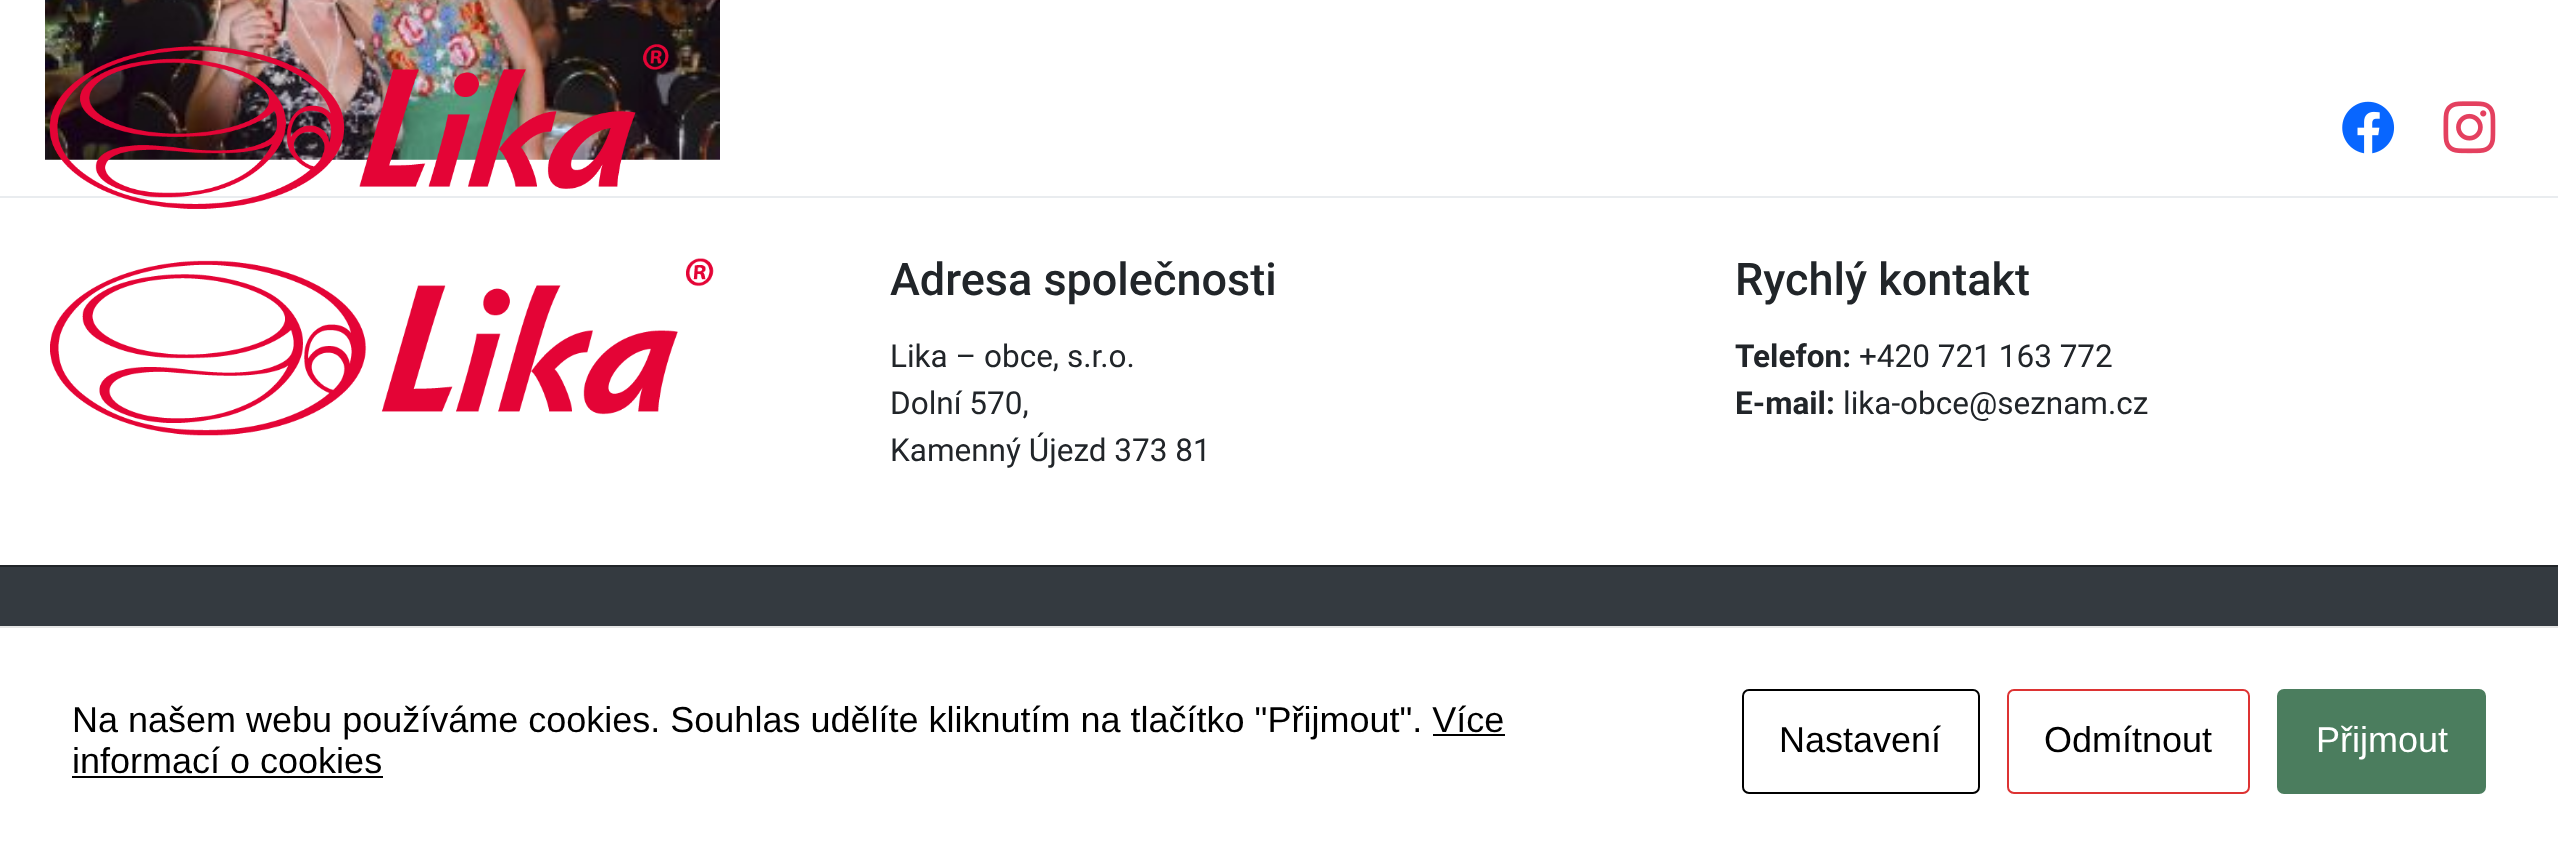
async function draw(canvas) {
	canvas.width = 2558;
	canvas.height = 854;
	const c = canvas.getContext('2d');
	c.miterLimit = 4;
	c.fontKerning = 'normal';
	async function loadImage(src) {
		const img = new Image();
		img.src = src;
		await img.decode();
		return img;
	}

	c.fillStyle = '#fff';
	c.fillRect(0, 0, 2558, 854);
	c.drawImage(await loadImage('img1.png'), 45, 0, 675, 160);
	c.fillStyle = '#e9ecef';
	c.fillRect(0, 196, 2558, 2);
	c.drawImage(await loadImage('img2.png'), 49, 44, 620, 165);
	c.drawImage(await loadImage('img3.png'), 2342, 101, 53, 53);
	c.drawImage(await loadImage('img4.png'), 2443, 101, 53, 53);
	c.drawImage(await loadImage('img5.png'), 50, 258, 664, 178);
	c.font = '500 45px Roboto';
	c.fillStyle = '#212529';
	c.fillText('Adresa společnosti', 890, 295);
	c.font = '31.5px Roboto';
	for (const [text, x, y] of [
		['Lika – obce, s.r.o.', 890, 367],
		['Dolní 570,', 890, 414],
		['Kamenný Újezd 373 81', 890, 461],
	]) {
		c.fillText(text, x, y);
	}
	c.font = '500 45px Roboto';
	c.fillText('Rychlý kontakt', 1735, 295);
	c.font = 'bold 31.5px Roboto';
	c.fillText('Telefon:', 1735, 367);
	c.font = '31.5px Roboto';
	c.fillText('+420 721 163 772', 1859, 367);
	c.font = 'bold 31.5px Roboto';
	c.fillText('E-mail:', 1735, 414);
	c.font = '31.5px Roboto';
	c.fillText('lika-obce@seznam.cz', 1843, 414);
	for (const [x, y, w, h, color] of [
		[0, 567, 2558, 59, '#343a40'],
		[0, 565, 2558, 2, '#212529'],
		[0, 626, 2558, 2, '#e6e6e6'],
	]) {
		c.fillStyle = color;
		c.fillRect(x, y, w, h);
	}
	c.font = '36px Liberation Sans';
	c.fillStyle = '#000';
	c.fillText('Na našem webu používáme cookies. Souhlas udělíte kliknutím na tlačítko "Přijmout". Více', 72, 732);
	c.fillText('informací o cookies', 72, 773);
	c.fillRect(1433, 734, 72, 2);
	c.fillRect(72, 776, 311, 2);
	c.beginPath();
	c.roundRect(1743, 690, 236, 103, 6);
	c.strokeStyle = '#000';
	c.lineWidth = 2;
	c.stroke();
	c.fillText('Nastavení', 1779, 752);
	c.beginPath();
	c.roundRect(2008, 690, 241, 103, 6);
	c.strokeStyle = '#d33';
	c.stroke();
	c.fillText('Odmítnout', 2044, 752);
	c.fillStyle = '#4b7d5e';
	c.beginPath();
	c.roundRect(2278, 690, 207, 103, 6);
	c.fill();
	c.strokeStyle = '#4b7d5e';
	c.stroke();
	c.fillStyle = '#fff';
	c.fillText('Přijmout', 2316, 752);
}

draw(document.querySelector('canvas'));
